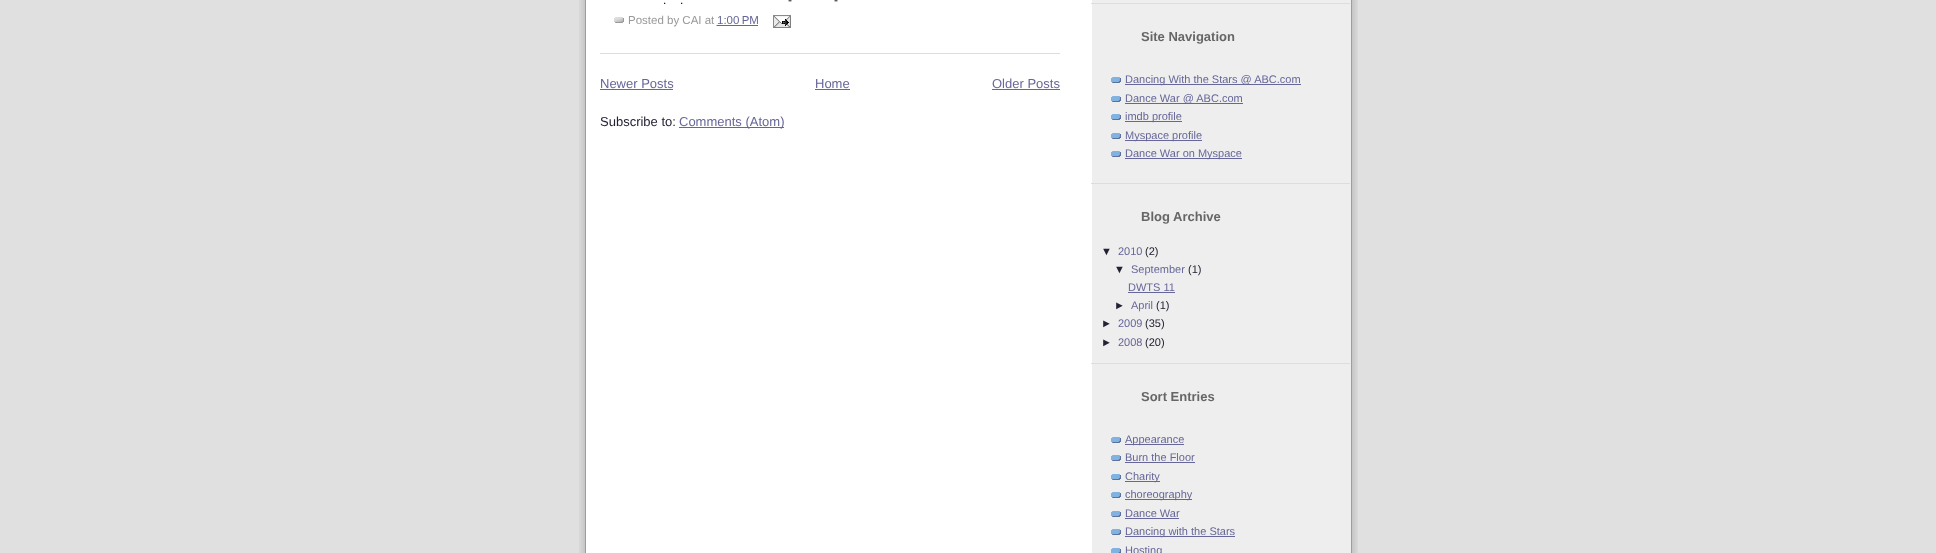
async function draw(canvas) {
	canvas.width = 1936;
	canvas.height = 553;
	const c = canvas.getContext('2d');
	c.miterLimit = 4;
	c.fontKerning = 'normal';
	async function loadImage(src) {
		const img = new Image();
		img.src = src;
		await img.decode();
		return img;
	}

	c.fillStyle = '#e0e0e0';
	c.fillRect(0, 0, 1936, 553);
	c.drawImage(await loadImage('img1.png'), 579, 0, 779, 553);
	c.fillStyle = '#ddd';
	c.fillRect(600, 53, 460, 1);
	c.font = '12px Liberation Sans';
	c.fillStyle = '#000';
	for (const [text, x, y] of [
		['-', 788, 4],
		['-', 834, 4],
		['.', 663, 4],
		['.', 680, 4],
	]) {
		c.fillText(text, x, y);
	}
	c.drawImage(await loadImage('img2.png'), 614, 17, 10, 6);
	c.font = '11.5px Liberation Sans';
	c.fillStyle = '#999';
	c.fillText('Posted by CAI at', 628, 24);
	c.fillStyle = '#669';
	c.fillText('1:00 PM', 717, 24);
	c.beginPath();
	c.moveTo(716.5, 25.5);
	c.lineTo(758, 25.5);
	c.strokeStyle = '#669';
	c.setLineDash([1, 1]);
	c.stroke();
	c.fillRect(717, 25, 41, 1);
	c.drawImage(await loadImage('img3.png'), 773, 15, 18, 13);
	c.font = '13px Liberation Sans';
	c.fillText('Newer Posts', 600, 88);
	c.fillRect(600, 89, 73, 1);
	c.fillText('Home', 815, 88);
	c.fillRect(815, 89, 35, 1);
	c.fillText('Older Posts', 992, 88);
	c.fillRect(992, 89, 68, 1);
	c.fillStyle = '#223';
	c.fillText('Subscribe to:', 600, 126);
	c.fillStyle = '#669';
	c.fillRect(679, 127, 105, 1);
	c.fillText('Comments (Atom)', 679, 126);
	c.fillStyle = '#ddd';
	c.fillRect(1091, 3, 259, 1);
	c.fillRect(1091, 183, 259, 1);
	c.font = 'bold 13px Liberation Sans';
	c.fillStyle = '#666';
	c.fillText('Site Navigation', 1141, 41);
	c.drawImage(await loadImage('img4.png'), 1111, 77, 10, 6);
	c.fillStyle = '#669';
	c.fillRect(1125, 84, 176, 1);
	c.font = '11px Liberation Sans';
	c.fillText('Dancing With the Stars @ ABC.com', 1125, 83);
	c.drawImage(await loadImage('img4.png'), 1111, 96, 10, 6);
	c.fillRect(1125, 103, 118, 1);
	c.fillText('Dance War @ ABC.com', 1125, 102);
	c.drawImage(await loadImage('img4.png'), 1111, 114, 10, 6);
	c.fillRect(1125, 121, 57, 1);
	c.fillText('imdb profile', 1125, 120);
	c.drawImage(await loadImage('img4.png'), 1111, 133, 10, 6);
	c.fillRect(1125, 140, 77, 1);
	c.fillText('Myspace profile', 1125, 139);
	c.drawImage(await loadImage('img4.png'), 1111, 151, 10, 6);
	c.fillRect(1125, 158, 117, 1);
	c.fillText('Dance War on Myspace', 1125, 157);
	c.fillStyle = '#ddd';
	c.fillRect(1091, 363, 259, 1);
	c.font = 'bold 13px Liberation Sans';
	c.fillStyle = '#666';
	c.fillText('Blog Archive', 1141, 221);
	c.font = '11px Liberation Sans';
	c.fillStyle = '#223';
	c.fillText('▼', 1101, 255);
	c.fillStyle = '#669';
	c.fillText('2010', 1118, 255);
	c.fillStyle = '#223';
	c.fillText('(2)', 1145, 255);
	c.fillText('▼', 1114, 273);
	c.fillStyle = '#669';
	c.fillText('September', 1131, 273);
	c.fillStyle = '#223';
	c.fillText('(1)', 1188, 273);
	c.fillStyle = '#669';
	c.fillText('DWTS 11', 1128, 291);
	c.fillRect(1128, 292, 47, 1);
	c.fillStyle = '#223';
	c.fillText('►', 1114, 309);
	c.fillStyle = '#669';
	c.fillText('April', 1131, 309);
	c.fillStyle = '#223';
	c.fillText('(1)', 1156, 309);
	c.fillText('►', 1101, 327);
	c.fillStyle = '#669';
	c.fillText('2009', 1118, 327);
	c.fillStyle = '#223';
	c.fillText('(35)', 1145, 327);
	c.fillText('►', 1101, 346);
	c.fillStyle = '#669';
	c.fillText('2008', 1118, 346);
	c.fillStyle = '#223';
	c.fillText('(20)', 1145, 346);
	c.font = 'bold 13px Liberation Sans';
	c.fillStyle = '#666';
	c.fillText('Sort Entries', 1141, 401);
	c.drawImage(await loadImage('img4.png'), 1111, 437, 10, 6);
	c.fillStyle = '#669';
	c.fillRect(1125, 444, 59, 1);
	c.font = '11px Liberation Sans';
	c.fillText('Appearance', 1125, 443);
	c.drawImage(await loadImage('img4.png'), 1111, 455, 10, 6);
	c.fillText('Burn the Floor', 1125, 461);
	c.fillRect(1125, 462, 70, 1);
	c.drawImage(await loadImage('img4.png'), 1111, 474, 10, 6);
	c.fillRect(1125, 481, 35, 1);
	c.fillText('Charity', 1125, 480);
	c.drawImage(await loadImage('img4.png'), 1111, 492, 10, 6);
	c.fillRect(1125, 499, 67, 1);
	c.fillText('choreography', 1125, 498);
	c.drawImage(await loadImage('img4.png'), 1111, 511, 10, 6);
	c.fillText('Dance War', 1125, 517);
	c.fillRect(1125, 518, 54, 1);
	c.drawImage(await loadImage('img4.png'), 1111, 529, 10, 6);
	c.fillRect(1125, 536, 110, 1);
	c.fillText('Dancing with the Stars', 1125, 535);
	c.drawImage(await loadImage('img5.png'), 1111, 548, 10, 5);
	c.fillText('Hosting', 1125, 554);
}

draw(document.querySelector('canvas'));
